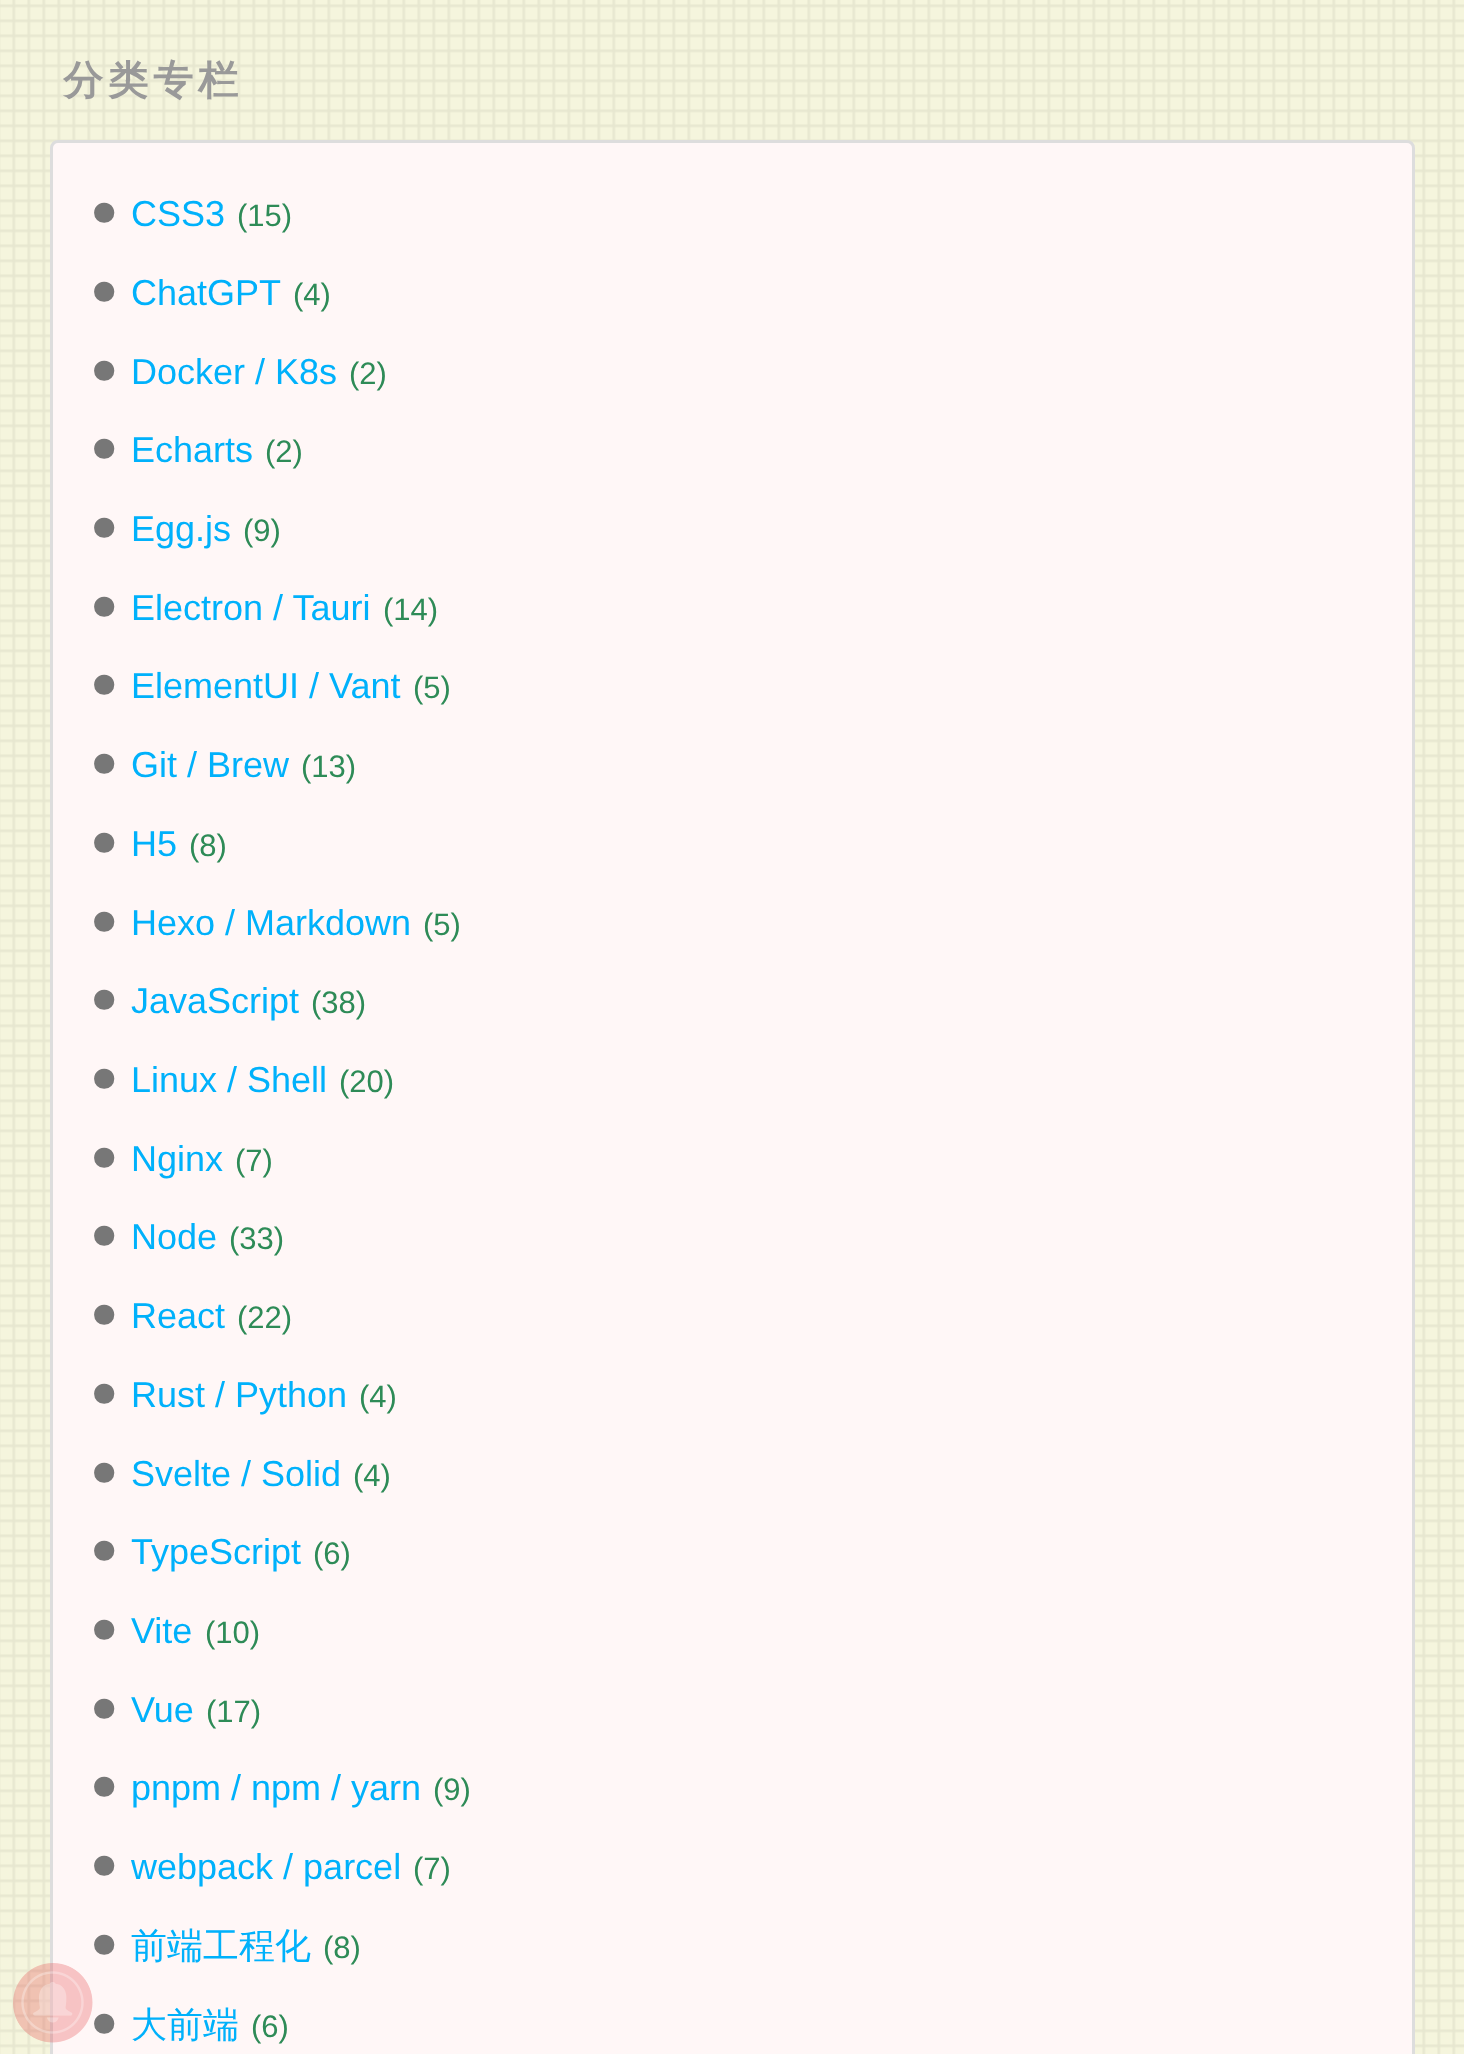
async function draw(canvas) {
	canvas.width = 1464;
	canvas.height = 2054;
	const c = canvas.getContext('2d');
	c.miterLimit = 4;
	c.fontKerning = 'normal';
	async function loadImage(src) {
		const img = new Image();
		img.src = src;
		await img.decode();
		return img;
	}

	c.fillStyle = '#f5f5dd';
	c.fillRect(0, 0, 1464, 2054);
	c.drawImage(await loadImage('img2.png'), 0, 0, 1464, 2054);
	c.fillStyle = '#fff7f7';
	c.beginPath();
	c.roundRect(51.5, 141.5, 1362, 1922, 6.5);
	c.fill();
	c.strokeStyle = '#ddd';
	c.lineWidth = 3;
	c.stroke();
	c.drawImage(await loadImage('img1.png'), 13, 1963, 80, 80);
	c.letterSpacing = '5px';
	c.font = 'bold 40px WenQuanYi Zen Hei';
	c.fillStyle = '#999';
	c.fillText('分类专栏', 63, 94);
	c.letterSpacing = '0px';
	c.font = '47px Liberation Sans';
	c.fillStyle = '#777';
	c.fillText('●', 90, 226);
	c.font = '36px Liberation Sans';
	c.fillStyle = '#00b1fb';
	c.fillText('CSS3', 131, 226);
	c.font = '31px Liberation Sans';
	c.fillStyle = '#2e8b57';
	c.fillText('(15)', 237, 226);
	c.font = '47px Liberation Sans';
	c.fillStyle = '#777';
	c.fillText('●', 90, 305);
	c.font = '36px Liberation Sans';
	c.fillStyle = '#00b1fb';
	c.fillText('ChatGPT', 131, 305);
	c.font = '31px Liberation Sans';
	c.fillStyle = '#2e8b57';
	c.fillText('(4)', 293, 305);
	c.font = '47px Liberation Sans';
	c.fillStyle = '#777';
	c.fillText('●', 90, 384);
	c.font = '36px Liberation Sans';
	c.fillStyle = '#00b1fb';
	c.fillText('Docker / K8s', 131, 384);
	c.font = '31px Liberation Sans';
	c.fillStyle = '#2e8b57';
	c.fillText('(2)', 349, 384);
	c.font = '47px Liberation Sans';
	c.fillStyle = '#777';
	c.fillText('●', 90, 462);
	c.font = '36px Liberation Sans';
	c.fillStyle = '#00b1fb';
	c.fillText('Echarts', 131, 462);
	c.font = '31px Liberation Sans';
	c.fillStyle = '#2e8b57';
	c.fillText('(2)', 265, 462);
	c.font = '47px Liberation Sans';
	c.fillStyle = '#777';
	c.fillText('●', 90, 541);
	c.font = '36px Liberation Sans';
	c.fillStyle = '#00b1fb';
	c.fillText('Egg.js', 131, 541);
	c.font = '31px Liberation Sans';
	c.fillStyle = '#2e8b57';
	c.fillText('(9)', 243, 541);
	c.font = '47px Liberation Sans';
	c.fillStyle = '#777';
	c.fillText('●', 90, 620);
	c.font = '36px Liberation Sans';
	c.fillStyle = '#00b1fb';
	c.fillText('Electron / Tauri', 131, 620);
	c.font = '31px Liberation Sans';
	c.fillStyle = '#2e8b57';
	c.fillText('(14)', 383, 620);
	c.font = '47px Liberation Sans';
	c.fillStyle = '#777';
	c.fillText('●', 90, 698);
	c.font = '36px Liberation Sans';
	c.fillStyle = '#00b1fb';
	c.fillText('ElementUI / Vant', 131, 698);
	c.font = '31px Liberation Sans';
	c.fillStyle = '#2e8b57';
	c.fillText('(5)', 413, 698);
	c.font = '47px Liberation Sans';
	c.fillStyle = '#777';
	c.fillText('●', 90, 777);
	c.font = '36px Liberation Sans';
	c.fillStyle = '#00b1fb';
	c.fillText('Git / Brew', 131, 777);
	c.font = '31px Liberation Sans';
	c.fillStyle = '#2e8b57';
	c.fillText('(13)', 301, 777);
	c.font = '47px Liberation Sans';
	c.fillStyle = '#777';
	c.fillText('●', 90, 856);
	c.font = '36px Liberation Sans';
	c.fillStyle = '#00b1fb';
	c.fillText('H5', 131, 856);
	c.font = '31px Liberation Sans';
	c.fillStyle = '#2e8b57';
	c.fillText('(8)', 189, 856);
	c.font = '47px Liberation Sans';
	c.fillStyle = '#777';
	c.fillText('●', 90, 935);
	c.font = '36px Liberation Sans';
	c.fillStyle = '#00b1fb';
	c.fillText('Hexo / Markdown', 131, 935);
	c.font = '31px Liberation Sans';
	c.fillStyle = '#2e8b57';
	c.fillText('(5)', 423, 935);
	c.font = '47px Liberation Sans';
	c.fillStyle = '#777';
	c.fillText('●', 90, 1013);
	c.font = '36px Liberation Sans';
	c.fillStyle = '#00b1fb';
	c.fillText('JavaScript', 131, 1013);
	c.font = '31px Liberation Sans';
	c.fillStyle = '#2e8b57';
	c.fillText('(38)', 311, 1013);
	c.font = '47px Liberation Sans';
	c.fillStyle = '#777';
	c.fillText('●', 90, 1092);
	c.font = '36px Liberation Sans';
	c.fillStyle = '#00b1fb';
	c.fillText('Linux / Shell', 131, 1092);
	c.font = '31px Liberation Sans';
	c.fillStyle = '#2e8b57';
	c.fillText('(20)', 339, 1092);
	c.font = '47px Liberation Sans';
	c.fillStyle = '#777';
	c.fillText('●', 90, 1171);
	c.font = '36px Liberation Sans';
	c.fillStyle = '#00b1fb';
	c.fillText('Nginx', 131, 1171);
	c.font = '31px Liberation Sans';
	c.fillStyle = '#2e8b57';
	c.fillText('(7)', 235, 1171);
	c.font = '47px Liberation Sans';
	c.fillStyle = '#777';
	c.fillText('●', 90, 1249);
	c.font = '36px Liberation Sans';
	c.fillStyle = '#00b1fb';
	c.fillText('Node', 131, 1249);
	c.font = '31px Liberation Sans';
	c.fillStyle = '#2e8b57';
	c.fillText('(33)', 229, 1249);
	c.font = '47px Liberation Sans';
	c.fillStyle = '#777';
	c.fillText('●', 90, 1328);
	c.font = '36px Liberation Sans';
	c.fillStyle = '#00b1fb';
	c.fillText('React', 131, 1328);
	c.font = '31px Liberation Sans';
	c.fillStyle = '#2e8b57';
	c.fillText('(22)', 237, 1328);
	c.font = '47px Liberation Sans';
	c.fillStyle = '#777';
	c.fillText('●', 90, 1407);
	c.font = '36px Liberation Sans';
	c.fillStyle = '#00b1fb';
	c.fillText('Rust / Python', 131, 1407);
	c.font = '31px Liberation Sans';
	c.fillStyle = '#2e8b57';
	c.fillText('(4)', 359, 1407);
	c.font = '47px Liberation Sans';
	c.fillStyle = '#777';
	c.fillText('●', 90, 1486);
	c.font = '36px Liberation Sans';
	c.fillStyle = '#00b1fb';
	c.fillText('Svelte / Solid', 131, 1486);
	c.font = '31px Liberation Sans';
	c.fillStyle = '#2e8b57';
	c.fillText('(4)', 353, 1486);
	c.font = '47px Liberation Sans';
	c.fillStyle = '#777';
	c.fillText('●', 90, 1564);
	c.font = '36px Liberation Sans';
	c.fillStyle = '#00b1fb';
	c.fillText('TypeScript', 131, 1564);
	c.font = '31px Liberation Sans';
	c.fillStyle = '#2e8b57';
	c.fillText('(6)', 313, 1564);
	c.font = '47px Liberation Sans';
	c.fillStyle = '#777';
	c.fillText('●', 90, 1643);
	c.font = '36px Liberation Sans';
	c.fillStyle = '#00b1fb';
	c.fillText('Vite', 131, 1643);
	c.font = '31px Liberation Sans';
	c.fillStyle = '#2e8b57';
	c.fillText('(10)', 205, 1643);
	c.font = '47px Liberation Sans';
	c.fillStyle = '#777';
	c.fillText('●', 90, 1722);
	c.font = '36px Liberation Sans';
	c.fillStyle = '#00b1fb';
	c.fillText('Vue', 131, 1722);
	c.font = '31px Liberation Sans';
	c.fillStyle = '#2e8b57';
	c.fillText('(17)', 206, 1722);
	c.font = '47px Liberation Sans';
	c.fillStyle = '#777';
	c.fillText('●', 90, 1800);
	c.font = '36px Liberation Sans';
	c.fillStyle = '#00b1fb';
	c.fillText('pnpm / npm / yarn', 131, 1800);
	c.font = '31px Liberation Sans';
	c.fillStyle = '#2e8b57';
	c.fillText('(9)', 433, 1800);
	c.font = '47px Liberation Sans';
	c.fillStyle = '#777';
	c.fillText('●', 90, 1879);
	c.font = '36px Liberation Sans';
	c.fillStyle = '#00b1fb';
	c.fillText('webpack / parcel', 131, 1879);
	c.font = '31px Liberation Sans';
	c.fillStyle = '#2e8b57';
	c.fillText('(7)', 413, 1879);
	c.font = '47px Liberation Sans';
	c.fillStyle = '#777';
	c.fillText('●', 90, 1958);
	c.font = '500 36px WenQuanYi Zen Hei';
	c.fillStyle = '#00b1fb';
	c.fillText('前端工程化', 131, 1958);
	c.font = '31px Liberation Sans';
	c.fillStyle = '#2e8b57';
	c.fillText('(8)', 323, 1958);
	c.font = '47px Liberation Sans';
	c.fillStyle = '#777';
	c.fillText('●', 90, 2037);
	c.font = '500 36px WenQuanYi Zen Hei';
	c.fillStyle = '#00b1fb';
	c.fillText('大前端', 131, 2037);
	c.font = '31px Liberation Sans';
	c.fillStyle = '#2e8b57';
	c.fillText('(6)', 251, 2037);
}

draw(document.querySelector('canvas'));
